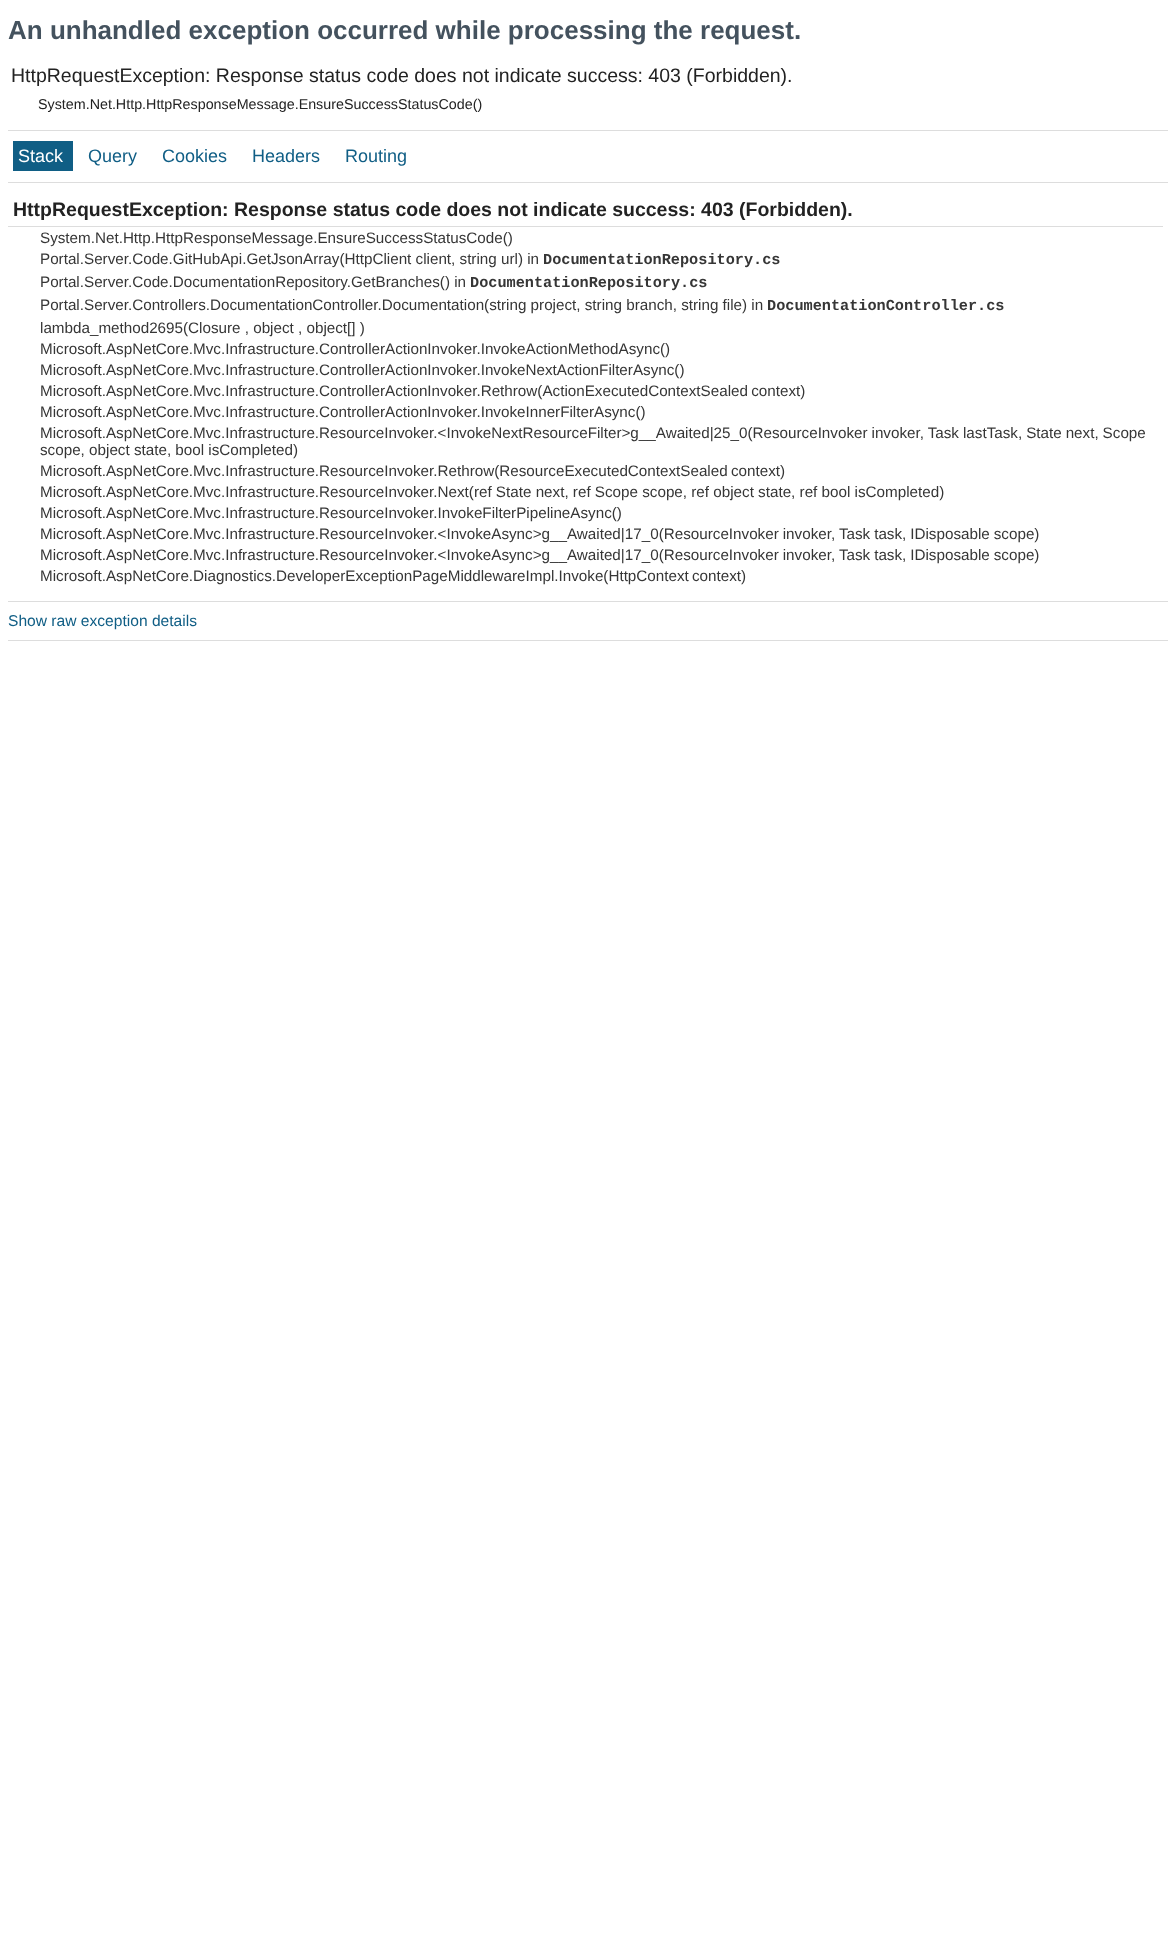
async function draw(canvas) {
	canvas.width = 1176;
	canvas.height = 1954;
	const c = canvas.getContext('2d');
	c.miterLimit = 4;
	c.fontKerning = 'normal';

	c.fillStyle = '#fff';
	c.fillRect(0, 0, 1176, 1954);
	c.font = 'bold 26px Liberation Sans';
	c.fillStyle = '#44525e';
	c.fillText('An unhandled exception occurred while processing the request.', 8, 39);
	c.font = '19.5px Liberation Sans';
	c.fillStyle = '#222';
	c.fillText('HttpRequestException: Response status code does not indicate success: 403 (Forbidden).', 11, 82);
	c.font = '14.3px Liberation Sans';
	c.fillText('System.Net.Http.HttpResponseMessage.EnsureSuccessStatusCode()', 38, 109);
	for (const [x, y, w, h, color] of [
		[8, 130, 1160, 1, '#ddd'],
		[8, 182, 1160, 1, '#ddd'],
		[13, 141, 60, 30, '#105e85'],
	]) {
		c.fillStyle = color;
		c.fillRect(x, y, w, h);
	}
	c.font = '18px Liberation Sans';
	c.fillStyle = '#fff';
	c.fillText('Stack', 18, 162);
	c.fillStyle = '#105e85';
	for (const [text, x, y] of [
		['Query', 88, 162],
		['Cookies', 162, 162],
		['Headers', 252, 162],
		['Routing', 345, 162],
	]) {
		c.fillText(text, x, y);
	}
	c.fillStyle = '#ddd';
	c.fillRect(8, 226, 1155, 1);
	c.font = 'bold 19.5px Liberation Sans';
	c.fillStyle = '#222';
	c.fillText('HttpRequestException: Response status code does not indicate success: 403 (Forbidden).', 13, 216);
	c.font = '15.22px Liberation Sans';
	c.fillStyle = '#363636';
	c.fillText('System.Net.Http.HttpResponseMessage.EnsureSuccessStatusCode()', 40, 243);
	c.fillText('Portal.Server.Code.GitHubApi.GetJsonArray(HttpClient client, string url) in', 40, 264);
	c.font = 'bold 15.22px Liberation Mono';
	c.fillText('DocumentationRepository.cs', 543, 264);
	c.font = '15.22px Liberation Sans';
	c.fillText('Portal.Server.Code.DocumentationRepository.GetBranches() in', 40, 287);
	c.font = 'bold 15.22px Liberation Mono';
	c.fillText('DocumentationRepository.cs', 470, 287);
	c.font = '15.22px Liberation Sans';
	c.fillText('Portal.Server.Controllers.DocumentationController.Documentation(string project, string branch, string file) in', 40, 310);
	c.font = 'bold 15.22px Liberation Mono';
	c.fillText('DocumentationController.cs', 767, 310);
	c.font = '15.22px Liberation Sans';
	for (const [text, x, y] of [
		['lambda_method2695(Closure , object , object[] )', 40, 333],
		['Microsoft.AspNetCore.Mvc.Infrastructure.ControllerActionInvoker.InvokeActionMethodAsync()', 40, 354],
		['Microsoft.AspNetCore.Mvc.Infrastructure.ControllerActionInvoker.InvokeNextActionFilterAsync()', 40, 375],
	]) {
		c.fillText(text, x, y);
	}
	c.wordSpacing = '-1px';
	c.fillText('Microsoft.AspNetCore.Mvc.Infrastructure.ControllerActionInvoker.Rethrow(ActionExecutedContextSealed context)', 40, 396);
	c.wordSpacing = '0px';
	c.fillText('Microsoft.AspNetCore.Mvc.Infrastructure.ControllerActionInvoker.InvokeInnerFilterAsync()', 40, 417);
	c.wordSpacing = '-0.25px';
	c.fillText('Microsoft.AspNetCore.Mvc.Infrastructure.ResourceInvoker.<InvokeNextResourceFilter>g__Awaited|25_0(ResourceInvoker invoker, Task lastTask, State next, Scope', 40, 438);
	c.wordSpacing = '0px';
	c.fillText('scope, object state, bool isCompleted)', 40, 455);
	c.wordSpacing = '-1px';
	c.fillText('Microsoft.AspNetCore.Mvc.Infrastructure.ResourceInvoker.Rethrow(ResourceExecutedContextSealed context)', 40, 476);
	c.wordSpacing = '0px';
	c.fillText('Microsoft.AspNetCore.Mvc.Infrastructure.ResourceInvoker.Next(ref State next, ref Scope scope, ref object state, ref bool isCompleted)', 40, 497);
	c.fillText('Microsoft.AspNetCore.Mvc.Infrastructure.ResourceInvoker.InvokeFilterPipelineAsync()', 40, 518);
	c.wordSpacing = '-0.25px';
	c.fillText('Microsoft.AspNetCore.Mvc.Infrastructure.ResourceInvoker.<InvokeAsync>g__Awaited|17_0(ResourceInvoker invoker, Task task, IDisposable scope)', 40, 539);
	c.fillText('Microsoft.AspNetCore.Mvc.Infrastructure.ResourceInvoker.<InvokeAsync>g__Awaited|17_0(ResourceInvoker invoker, Task task, IDisposable scope)', 40, 560);
	c.wordSpacing = '-1px';
	c.fillText('Microsoft.AspNetCore.Diagnostics.DeveloperExceptionPageMiddlewareImpl.Invoke(HttpContext context)', 40, 581);
	c.fillStyle = '#ddd';
	c.fillRect(8, 601, 1160, 1);
	c.fillRect(8, 640, 1160, 1);
	c.wordSpacing = '0px';
	c.font = '15.6px Liberation Sans';
	c.fillStyle = '#105e85';
	c.fillText('Show raw exception details', 8, 626);
}

draw(document.querySelector('canvas'));
